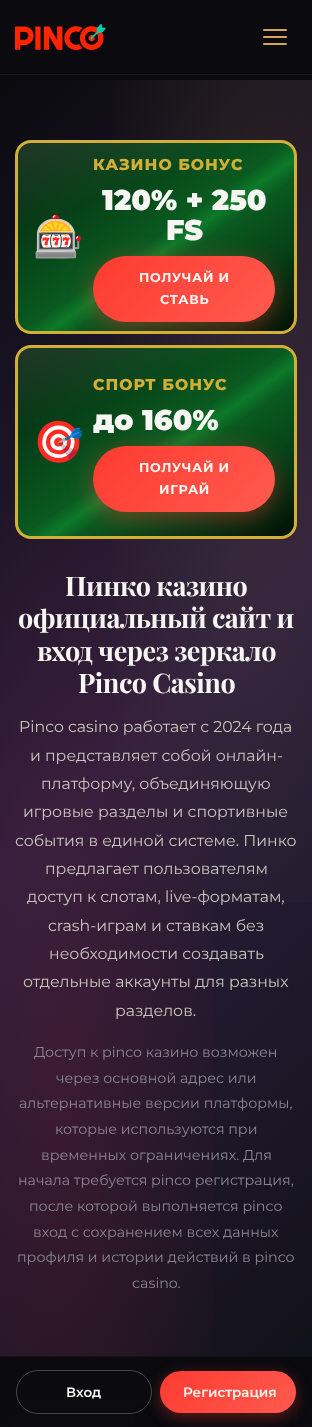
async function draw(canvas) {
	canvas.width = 312;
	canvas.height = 1427;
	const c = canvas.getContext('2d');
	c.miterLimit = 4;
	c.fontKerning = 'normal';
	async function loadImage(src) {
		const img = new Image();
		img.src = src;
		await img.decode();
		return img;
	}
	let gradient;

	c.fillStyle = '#0a0a0f';
	c.fillRect(0, 0, 312, 1427);
	c.fillStyle = '#1e1a16';
	c.fillRect(0, 74, 312, 1);
	c.drawImage(await loadImage('img1.png'), 15, 24, 91, 26);
	c.fillStyle = '#d4a754';
	c.beginPath();
	c.roundRect(263, 29, 24, 2, 1);
	c.fill();
	c.beginPath();
	c.roundRect(263, 36, 24, 2, 1);
	c.fill();
	c.beginPath();
	c.roundRect(263, 43, 24, 2, 1);
	c.fill();
	gradient = c.createLinearGradient(-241, 321, 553, 1115);
	gradient.addColorStop(0, '#0a0a0f');
	gradient.addColorStop(0.5, '#2d1f3d');
	gradient.addColorStop(1, '#12121a');
	c.fillStyle = gradient;
	c.fillRect(0, 80, 312, 1276);
	gradient = c.createRadialGradient(250, 81.89, 0, 250, 81.89, 353);
	gradient.addColorStop(0, '#d4a7541a');
	gradient.addColorStop(0.5, '#d4a75400');
	c.fillStyle = gradient;
	c.beginPath();
	c.rect(112, 80, 200, 823);
	c.save();
	c.clip();
	c.scale(1, 1444 / 353);
	c.fillRect(0, 0, 312, 349);
	c.restore();
	gradient = c.createRadialGradient(62, 269.15, 0, 62, 269.15, 353);
	gradient.addColorStop(0, '#c41e3a26');
	gradient.addColorStop(0.5, '#c41e3a00');
	c.fillStyle = gradient;
	c.beginPath();
	c.rect(0, 513, 213, 843);
	c.save();
	c.clip();
	c.scale(1, 1444 / 353);
	c.fillRect(0, 0, 312, 349);
	c.restore();
	c.save();
	c.beginPath();
	c.roundRect(15, 140, 282, 194, 16);
	c.clip();
	gradient = c.createLinearGradient(66, 109, 246, 365);
	gradient.addColorStop(0, '#021a08');
	gradient.addColorStop(0.25, '#063d16');
	gradient.addColorStop(0.5, '#0a5a20');
	gradient.addColorStop(0.55, '#0d7a2a');
	gradient.addColorStop(0.6, '#0a5a20');
	gradient.addColorStop(0.8, '#063d16');
	gradient.addColorStop(1, '#021a08');
	c.fillStyle = gradient;
	c.fillRect(18, 143, 276, 188);
	c.restore();
	c.beginPath();
	c.roundRect(16.5, 141.5, 279, 191, 14.5);
	c.strokeStyle = '#d4af37';
	c.lineWidth = 3;
	c.stroke();
	gradient = c.createLinearGradient(110, 110, 202, 364);
	gradient.addColorStop(0, '#ffffff1f');
	gradient.addColorStop(0.3, '#ffffff00');
	gradient.addColorStop(0.7, '#00000000');
	gradient.addColorStop(1, '#0000004d');
	c.fillStyle = gradient;
	c.beginPath();
	c.roundRect(18, 143, 276, 188, 13);
	c.fill();
	c.font = '41px Noto Color Emoji';
	c.fillStyle = '#c9c5be';
	c.fillText('🎰', 33, 251);
	c.letterSpacing = '1px';
	c.font = '800 15.75px Montserrat';
	c.fillStyle = '#d4af37';
	c.fillText('КАЗИНО БОНУС', 93, 170);
	c.letterSpacing = '0px';
	c.font = '900 28.5px Montserrat';
	c.fillStyle = '#f8f6f3';
	c.fillText('120% + 250', 102, 210);
	c.fillText('FS', 166, 240);
	c.save();
	c.beginPath();
	c.roundRect(15, 345, 282, 194, 16);
	c.clip();
	gradient = c.createLinearGradient(66, 314, 246, 570);
	gradient.addColorStop(0, '#021a08');
	gradient.addColorStop(0.25, '#063d16');
	gradient.addColorStop(0.5, '#0a5a20');
	gradient.addColorStop(0.55, '#0d7a2a');
	gradient.addColorStop(0.6, '#0a5a20');
	gradient.addColorStop(0.8, '#063d16');
	gradient.addColorStop(1, '#021a08');
	c.fillStyle = gradient;
	c.fillRect(18, 348, 276, 188);
	c.restore();
	c.beginPath();
	c.roundRect(16.5, 346.5, 279, 191, 14.5);
	c.stroke();
	gradient = c.createLinearGradient(110, 315, 202, 569);
	gradient.addColorStop(0, '#ffffff1f');
	gradient.addColorStop(0.3, '#ffffff00');
	gradient.addColorStop(0.7, '#00000000');
	gradient.addColorStop(1, '#0000004d');
	c.fillStyle = gradient;
	c.beginPath();
	c.roundRect(18, 348, 276, 188, 13);
	c.fill();
	c.save();
	c.beginPath();
	c.roundRect(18, 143, 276, 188, 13);
	c.clip();
	c.fillStyle = '#ff3b3066';
	c.filter = 'blur(12.5px)';
	c.beginPath();
	c.roundRect(93, 262, 182, 66, 33);
	c.fill();
	c.filter = 'none';
	c.restore();
	gradient = c.createLinearGradient(122, 227, 246, 351);
	gradient.addColorStop(0, '#ff3b30');
	gradient.addColorStop(1, '#ff5a4f');
	c.fillStyle = gradient;
	c.beginPath();
	c.roundRect(93, 256, 182, 66, 33);
	c.fill();
	c.letterSpacing = '0.75px';
	c.font = 'bold 12.75px Montserrat';
	c.fillStyle = '#f8f6f3';
	c.fillText('ПОЛУЧАЙ И', 139, 282);
	c.fillText('СТАВЬ', 160, 304);
	c.letterSpacing = '0px';
	c.font = '41px Noto Color Emoji';
	c.fillStyle = '#c9c5be';
	c.fillText('🎯', 33, 456);
	c.letterSpacing = '1px';
	c.font = '800 15.75px Montserrat';
	c.fillStyle = '#d4af37';
	c.fillText('СПОРТ БОНУС', 93, 390);
	c.letterSpacing = '0px';
	c.font = '900 28.5px Montserrat';
	c.fillStyle = '#f8f6f3';
	c.fillText('до 160%', 93, 430);
	c.save();
	c.beginPath();
	c.roundRect(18, 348, 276, 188, 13);
	c.clip();
	c.fillStyle = '#ff3b3066';
	c.filter = 'blur(12.5px)';
	c.beginPath();
	c.roundRect(93, 452, 182, 66, 33);
	c.fill();
	c.filter = 'none';
	c.restore();
	gradient = c.createLinearGradient(122, 417, 246, 541);
	gradient.addColorStop(0, '#ff3b30');
	gradient.addColorStop(1, '#ff5a4f');
	c.fillStyle = gradient;
	c.beginPath();
	c.roundRect(93, 446, 182, 66, 33);
	c.fill();
	c.letterSpacing = '0.75px';
	c.font = 'bold 12.75px Montserrat';
	c.fillStyle = '#f8f6f3';
	c.fillText('ПОЛУЧАЙ И', 139, 472);
	c.fillText('ИГРАЙ', 159, 494);
	c.letterSpacing = '-0.5px';
	c.font = 'bold 27px Playfair Display';
	for (const [text, x, y] of [
		['Пинко казино', 65, 596],
		['официальный сайт и', 18, 628],
		['вход через зеркало', 37, 661],
		['Pinco Casino', 78, 693],
	]) {
		c.fillText(text, x, y);
	}
	c.letterSpacing = '0px';
	c.font = '15.75px Montserrat';
	c.fillStyle = '#c9c5be';
	for (const [text, x, y] of [
		['Pinco casino работает с 2024 года', 19, 732],
		['и представляет собой онлайн-', 30, 761],
		['платформу, объединяющую', 41, 789],
		['игровые разделы и спортивные', 23, 817],
		['события в единой системе. Пинко', 15, 846],
		['предлагает пользователям', 45, 874],
		['доступ к слотам, live-форматам,', 27, 902],
		['crash-играм и ставкам без', 48, 931],
		['необходимости создавать', 49, 959],
		['отдельные аккаунты для разных', 23, 987],
		['разделов.', 115, 1016],
	]) {
		c.fillText(text, x, y);
	}
	c.font = '14.25px Montserrat';
	c.fillStyle = '#8a8690';
	for (const [text, x, y] of [
		['Доступ к pinco казино возможен', 34, 1057],
		['через основной адрес или', 56, 1083],
		['альтернативные версии платформы,', 19, 1108],
		['которые используются при', 55, 1134],
		['временных ограничениях. Для', 41, 1160],
		['начала требуется pinco регистрация,', 18, 1185],
		['после которой выполняется pinco', 29, 1211],
		['вход с сохранением всех данных', 33, 1237],
		['профиля и истории действий в pinco', 17, 1262],
		['casino.', 132, 1288],
	]) {
		c.fillText(text, x, y);
	}
	c.fillStyle = '#12121a';
	c.fillRect(0, 1356, 312, 71);
	c.beginPath();
	c.roundRect(15.5, 1401.5, 281, 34, 7.5);
	c.strokeStyle = '#393026';
	c.lineWidth = 1;
	c.stroke();
	c.beginPath();
	c.roundRect(16.5, 1402.5, 279, 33, 7.5);
	c.strokeStyle = '#d4a75433';
	c.stroke();
	c.fillStyle = '#1a1a26';
	c.beginPath();
	c.moveTo(24, 1403);
	c.lineTo(134, 1403);
	c.lineTo(134, 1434);
	c.lineTo(17, 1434);
	c.lineTo(17, 1410);
	c.bezierCurveTo(17, 1406, 20, 1403, 24, 1403);
	c.closePath();
	c.fill();
	c.fillStyle = '#0a0a0f';
	c.beginPath();
	c.moveTo(134, 1403);
	c.lineTo(288, 1403);
	c.bezierCurveTo(292, 1403, 295, 1406, 295, 1410);
	c.lineTo(295, 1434);
	c.lineTo(134, 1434);
	c.closePath();
	c.fill();
	gradient = c.createLinearGradient(156, 1357, 156, 1427);
	gradient.addColorStop(0, '#0a0a0f');
	gradient.addColorStop(1, '#0a0a0ff2');
	c.fillStyle = gradient;
	c.fillRect(0, 1357, 312, 70);
	c.beginPath();
	c.roundRect(16.5, 1370.5, 135, 43, 21.5);
	c.strokeStyle = '#464548';
	c.stroke();
	c.font = '600 13.5px Montserrat';
	c.fillStyle = '#f8f6f3';
	c.fillText('Вход', 66, 1397);
	c.fillStyle = '#ff3b3059';
	c.filter = 'blur(7.5px)';
	c.beginPath();
	c.roundRect(160, 1375, 136, 42, 21);
	c.fill();
	c.filter = 'none';
	gradient = c.createLinearGradient(184, 1348, 273, 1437);
	gradient.addColorStop(0, '#ff3b30');
	gradient.addColorStop(1, '#ff5a4f');
	c.fillStyle = gradient;
	c.beginPath();
	c.roundRect(160, 1371, 136, 42, 21);
	c.fill();
	c.fillStyle = '#f8f6f3';
	c.fillText('Регистрация', 183, 1397);
}

draw(document.querySelector('canvas'));
